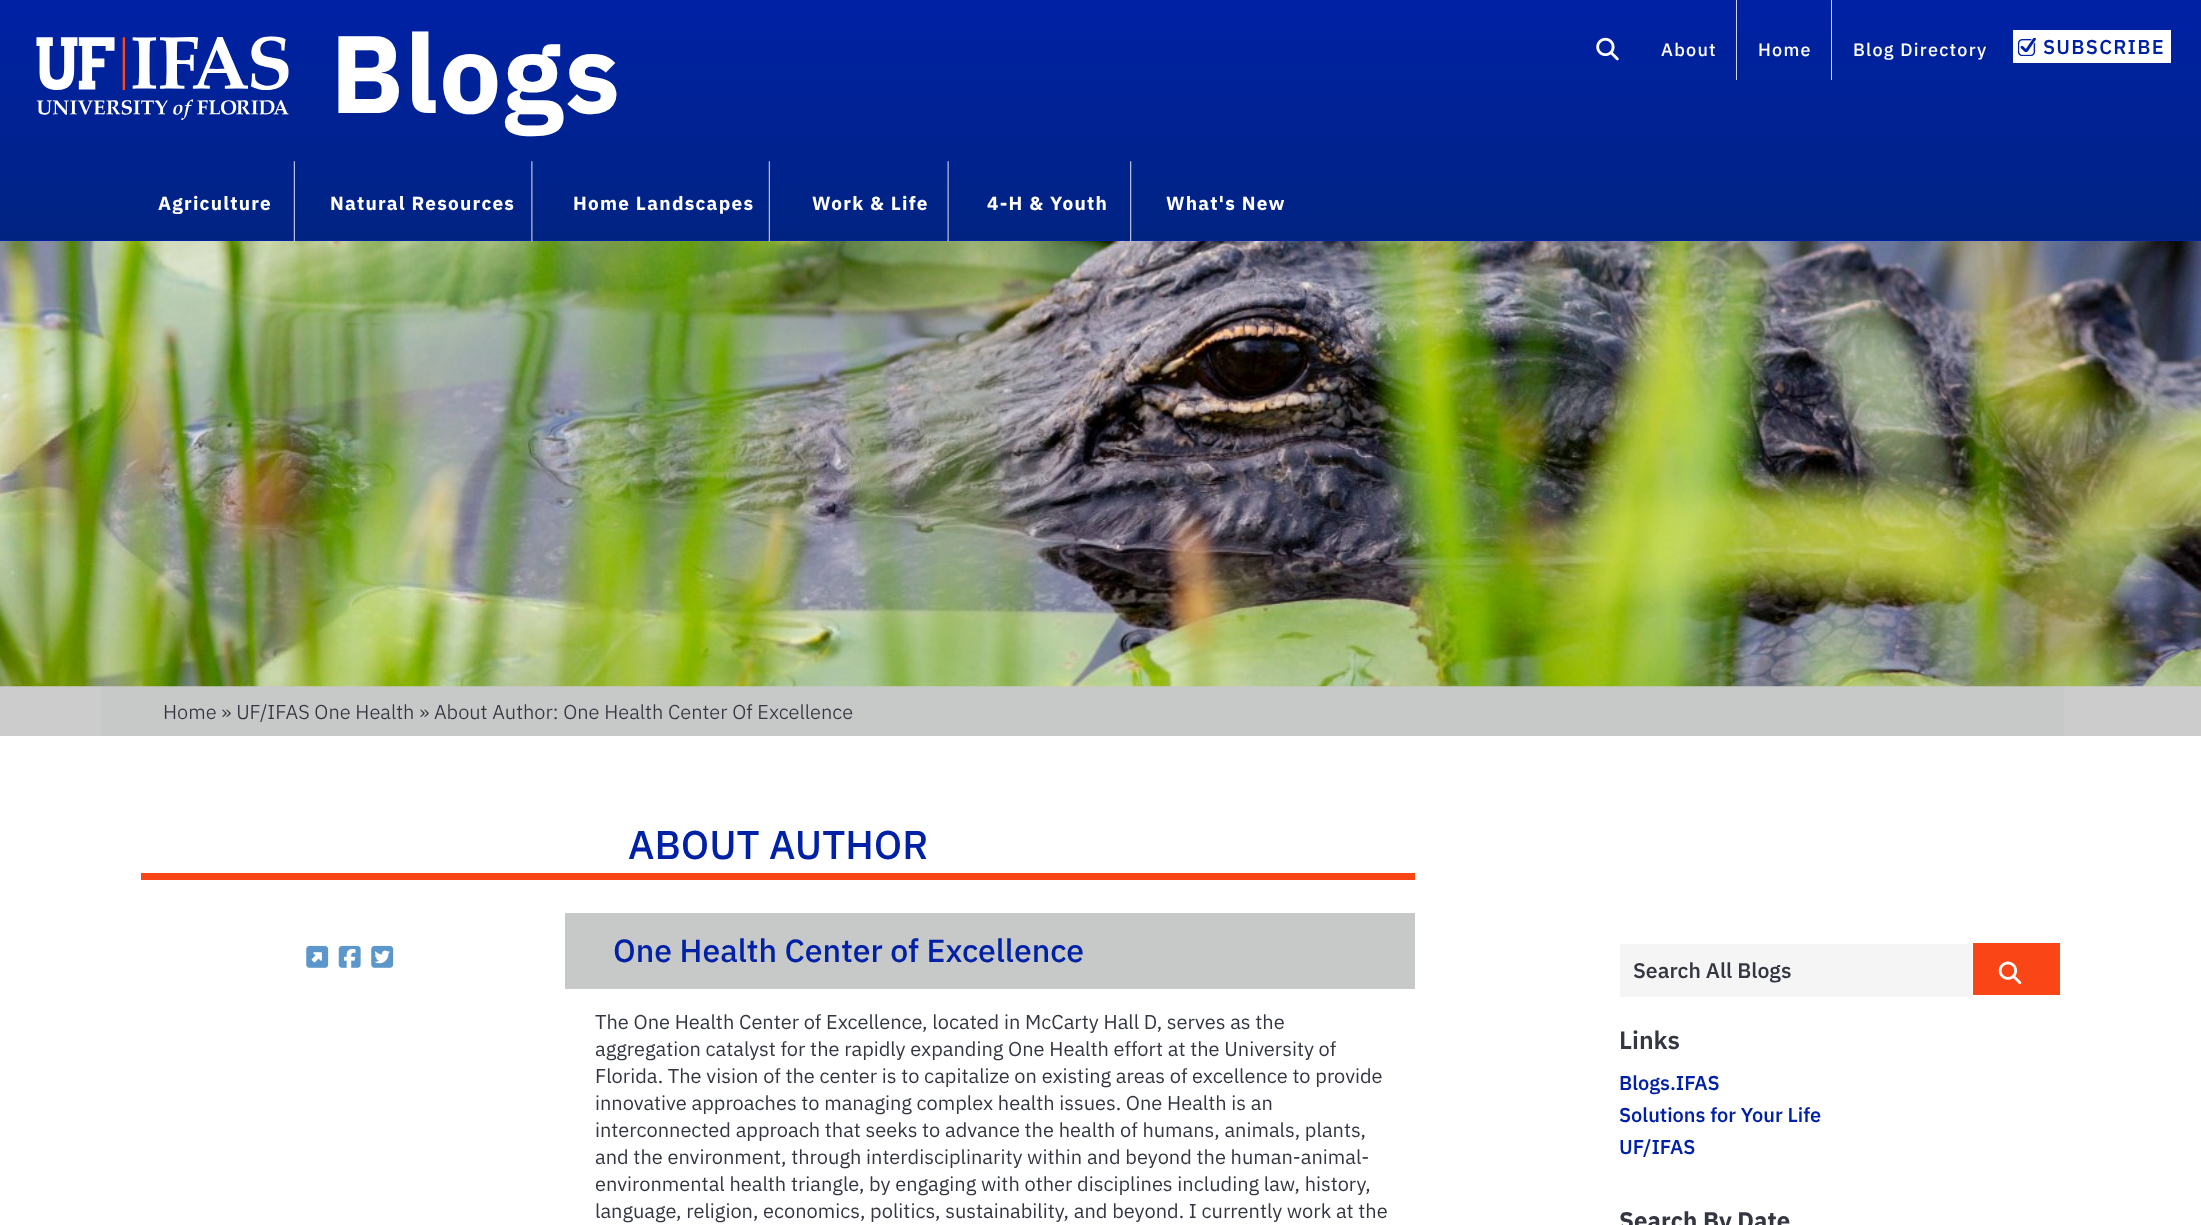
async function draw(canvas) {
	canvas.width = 2201;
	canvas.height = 1225;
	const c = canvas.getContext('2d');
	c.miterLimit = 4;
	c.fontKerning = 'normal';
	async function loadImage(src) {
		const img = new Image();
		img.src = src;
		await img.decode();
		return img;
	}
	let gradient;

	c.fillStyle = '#fff';
	c.fillRect(0, 0, 2201, 1225);
	gradient = c.createLinearGradient(1101, 0, 1101, 240);
	gradient.addColorStop(0, '#0021a5');
	gradient.addColorStop(1, '#002382');
	c.fillStyle = gradient;
	c.fillRect(0, 0, 2201, 240);
	gradient = c.createLinearGradient(1101, 0, 1101, 240);
	gradient.addColorStop(0, '#ccd3ed');
	gradient.addColorStop(1, '#ccd3e6');
	c.fillStyle = gradient;
	c.fillRect(1831, 0, 1, 80);
	c.fillRect(1736, 0, 1, 80);
	c.drawImage(await loadImage('img1.png'), 36, 36, 253, 84);
	c.letterSpacing = '1.25px';
	c.font = 'bold 110px IBM Plex Sans';
	c.fillStyle = '#fff';
	c.fillText('Blogs', 330, 113);
	c.drawImage(await loadImage('img2.png'), 1596, 37, 23, 24);
	c.font = '500 18px IBM Plex Sans';
	for (const [text, x, y] of [
		['About', 1661, 56],
		['Home', 1758, 56],
		['Blog Directory', 1853, 56],
	]) {
		c.fillText(text, x, y);
	}
	c.fillRect(2013, 30, 158, 33);
	c.drawImage(await loadImage('img3.png'), 2018, 38, 18, 18);
	c.font = '500 20px "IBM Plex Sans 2"';
	c.fillStyle = '#0021a5';
	c.fillText('SUBSCRIBE', 2043, 54);
	c.font = 'bold 19px IBM Plex Sans';
	c.fillStyle = '#fff';
	c.fillText('Agriculture', 158, 210);
	c.fillStyle = '#ccc';
	c.fillRect(0, 686, 2201, 50);
	c.fillStyle = '#c7c9c8';
	c.fillRect(101, 686, 1963, 50);
	c.drawImage(await loadImage('img9.png'), 0, 241, 2201, 446);
	c.fillStyle = '#0021a5';
	c.fillRect(0, 240, 2201, 1);
	c.drawImage(await loadImage('img4.png'), 293, 161, 2, 81);
	c.fillStyle = '#fff';
	c.fillText('Natural Resources', 330, 210);
	c.drawImage(await loadImage('img5.png'), 531, 161, 2, 81);
	c.fillText('Home Landscapes', 573, 210);
	c.drawImage(await loadImage('img6.png'), 768, 161, 2, 81);
	c.fillText('Work & Life', 812, 210);
	c.drawImage(await loadImage('img7.png'), 947, 161, 2, 81);
	c.fillText('4-H & Youth', 987, 210);
	c.drawImage(await loadImage('img8.png'), 1130, 161, 2, 81);
	c.fillText('What\'s New', 1166, 210);
	c.letterSpacing = '0px';
	c.font = '300 20px IBM Plex Sans';
	c.fillStyle = '#343741';
	c.fillText('Home » UF/IFAS One Health » About Author: One Health Center Of Excellence', 163, 719);
	c.fillStyle = '#fa4616';
	c.fillRect(141, 873, 1274, 7);
	c.font = '500 40px IBM Plex Sans';
	c.fillStyle = '#0021a5';
	c.fillText('ABOUT AUTHOR', 628, 859);
	c.drawImage(await loadImage('img10.png'), 306, 945, 23, 23);
	c.drawImage(await loadImage('img11.png'), 338, 945, 23, 23);
	c.drawImage(await loadImage('img12.png'), 371, 945, 23, 23);
	c.fillStyle = '#c7c9c8';
	c.fillRect(565, 913, 850, 76);
	c.font = '500 32px IBM Plex Sans';
	c.fillStyle = '#0021a5';
	c.fillText('One Health Center of Excellence', 613, 962);
	c.font = '20px IBM Plex Sans';
	c.fillStyle = '#343741';
	for (const [text, x, y] of [
		['The One Health Center of Excellence, located in McCarty Hall D, serves as the', 595, 1029],
		['aggregation catalyst for the rapidly expanding One Health effort at the University of', 595, 1056],
		['Florida. The vision of the center is to capitalize on existing areas of excellence to provide', 595, 1083],
		['innovative approaches to managing complex health issues. One Health is an', 595, 1110],
		['interconnected approach that seeks to advance the health of humans, animals, plants,', 595, 1137],
		['and the environment, through interdisciplinarity within and beyond the human-animal-', 595, 1164],
		['environmental health triangle, by engaging with other disciplines including law, history,', 595, 1191],
		['language, religion, economics, politics, sustainability, and beyond. I currently work at the', 595, 1218],
	]) {
		c.fillText(text, x, y);
	}
	c.fillStyle = '#f5f5f5';
	c.fillRect(1620, 944, 352, 53);
	c.font = '500 21.25px "IBM Plex Sans 2"';
	c.fillStyle = '#343741';
	c.fillText('Search All Blogs', 1633, 978);
	c.fillStyle = '#fa4616';
	c.fillRect(1973, 943, 87, 52);
	c.drawImage(await loadImage('img13.png'), 1998, 961, 24, 23);
	c.font = '600 25px IBM Plex Sans';
	c.fillStyle = '#343741';
	c.fillText('Links', 1619, 1049);
	c.font = '500 20px "IBM Plex Sans 2"';
	c.fillStyle = '#0021a5';
	for (const [text, x, y] of [
		['Blogs.IFAS', 1619, 1090],
		['Solutions for Your Life', 1619, 1122],
		['UF/IFAS', 1619, 1154],
	]) {
		c.fillText(text, x, y);
	}
	c.font = 'bold 24px IBM Plex Sans';
	c.fillStyle = '#343741';
	c.fillText('Search By Date', 1619, 1229);
}

draw(document.querySelector('canvas'));
